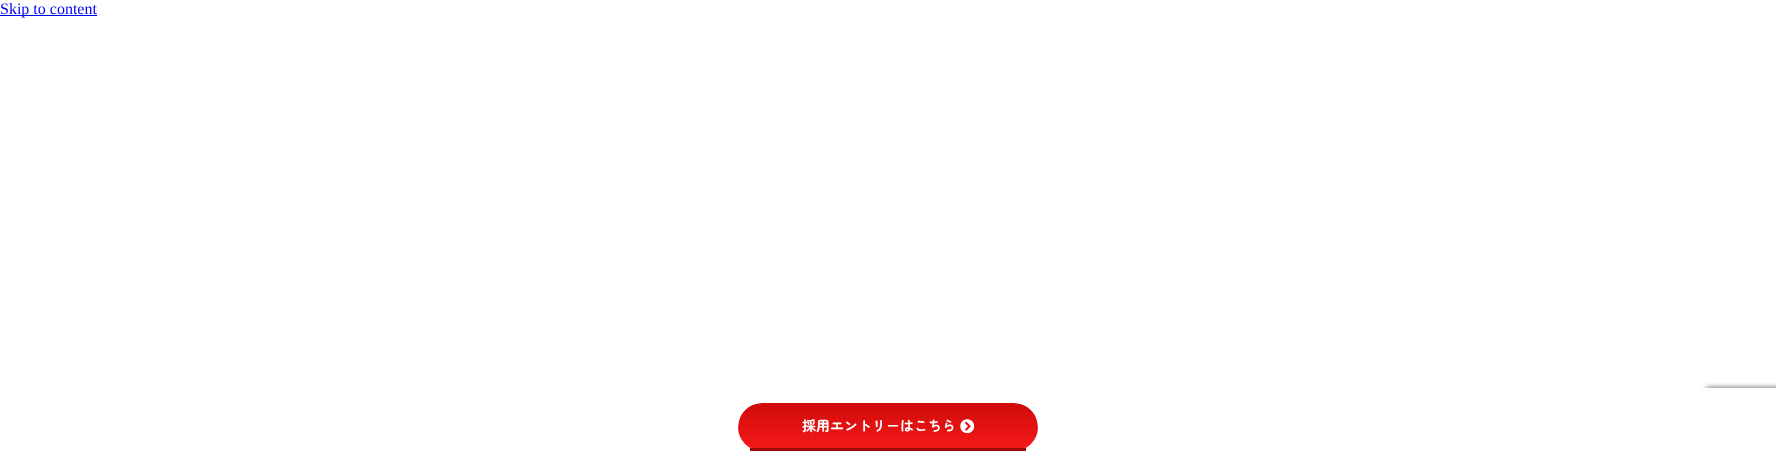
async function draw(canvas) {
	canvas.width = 1776;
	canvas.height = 461;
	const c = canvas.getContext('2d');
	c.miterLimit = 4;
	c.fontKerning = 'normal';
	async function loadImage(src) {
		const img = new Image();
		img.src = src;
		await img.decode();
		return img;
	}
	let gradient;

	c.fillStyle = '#fff';
	c.fillRect(0, 0, 1776, 461);
	c.fillStyle = '#00e';
	c.fillRect(0, 15, 97, 1);
	c.font = '16px Liberation Serif';
	c.fillText('Skip to content', 0, 14);
	c.fillStyle = '#808080';
	c.filter = 'blur(2.5px)';
	c.beginPath();
	c.roundRect(1706, 387, 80, 60, 2);
	c.fill();
	c.filter = 'none';
	c.fillStyle = '#fff';
	c.fillRect(1701, 388, 75, 64);
	c.save();
	c.beginPath();
	c.roundRect(738, 403, 300, 48, 24);
	c.clip();
	gradient = c.createLinearGradient(888, 403, 888, 448);
	gradient.addColorStop(0, '#d00a0a');
	gradient.addColorStop(1, '#f41919');
	c.fillStyle = gradient;
	c.beginPath();
	c.roundRect(738, 403, 300, 45, [24, 24, 0, 0]);
	c.fill();
	c.restore();
	c.fillStyle = '#9f0808';
	c.fillRect(750, 448, 276, 3);
	c.font = 'bold 14px Zen Maru Gothic';
	c.fillStyle = '#fff';
	c.fillText('採用エントリーはこちら', 802, 431);
	c.drawImage(await loadImage('img1.png'), 960, 419, 14, 14);
}

draw(document.querySelector('canvas'));
